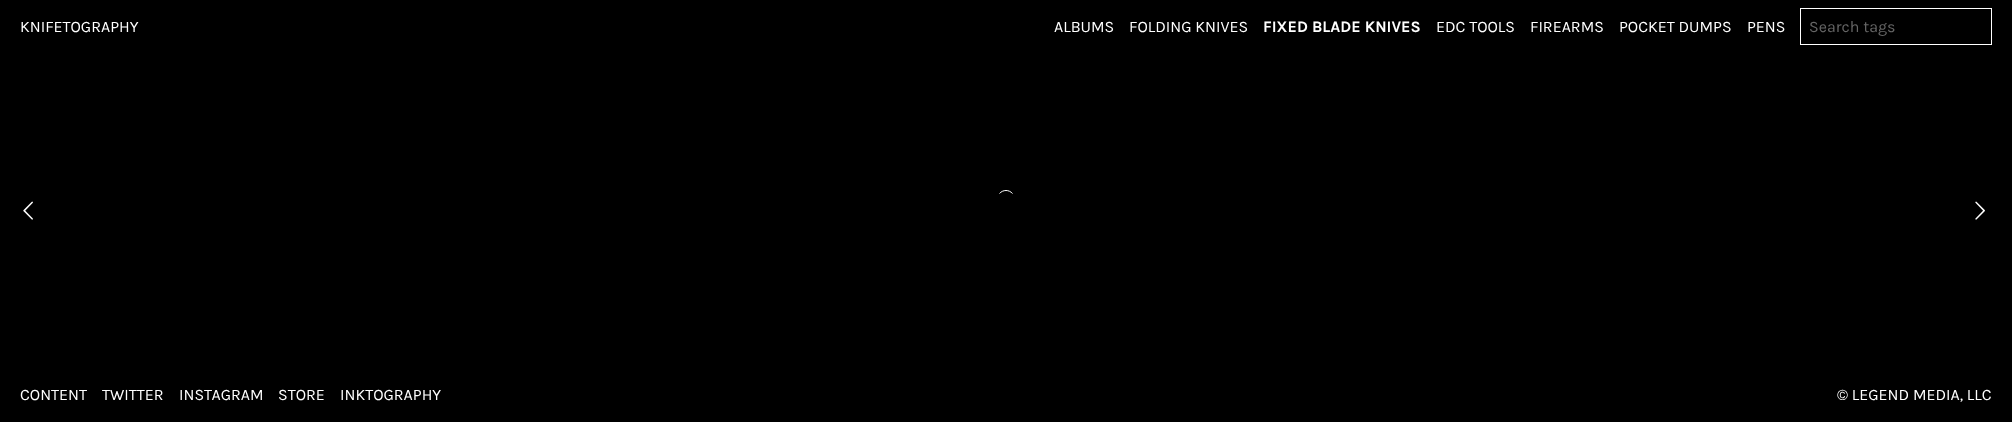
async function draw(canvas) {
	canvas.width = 2012;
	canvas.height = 422;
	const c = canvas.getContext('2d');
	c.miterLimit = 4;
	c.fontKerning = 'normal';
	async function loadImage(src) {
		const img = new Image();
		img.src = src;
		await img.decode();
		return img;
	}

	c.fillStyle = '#000';
	c.fillRect(0, 0, 2012, 422);
	c.font = '16px Karla';
	c.fillStyle = '#fff';
	for (const [text, x, y] of [
		['KNIFETOGRAPHY', 20, 32],
		['ALBUMS', 1054, 32],
		['FOLDING KNIVES', 1129, 32],
	]) {
		c.fillText(text, x, y);
	}
	c.font = 'bold 16px Karla';
	c.fillText('FIXED BLADE KNIVES', 1263, 32);
	c.font = '16px Karla';
	for (const [text, x, y] of [
		['EDC TOOLS', 1436, 32],
		['FIREARMS', 1530, 32],
		['POCKET DUMPS', 1619, 32],
		['PENS', 1747, 32],
	]) {
		c.fillText(text, x, y);
	}
	c.strokeStyle = '#fff';
	c.strokeRect(1800.5, 8.5, 191, 36);
	c.fillStyle = '#666';
	c.fillText('Search tags', 1809, 32);
	c.beginPath();
	c.moveTo(999.5, 193.5);
	c.bezierCurveTo(1003, 189.5, 1009, 189.5, 1012.5, 193.5);
	c.stroke();
	c.drawImage(await loadImage('img1.png'), 23, 201, 10, 19);
	c.drawImage(await loadImage('img2.png'), 1975, 201, 10, 19);
	c.fillStyle = '#fff';
	for (const [text, x, y] of [
		['CONTENT', 20, 400],
		['TWITTER', 102, 400],
		['INSTAGRAM', 179, 400],
		['STORE', 278, 400],
		['INKTOGRAPHY', 340, 400],
		['© LEGEND MEDIA, LLC', 1837, 400],
	]) {
		c.fillText(text, x, y);
	}
}

draw(document.querySelector('canvas'));
